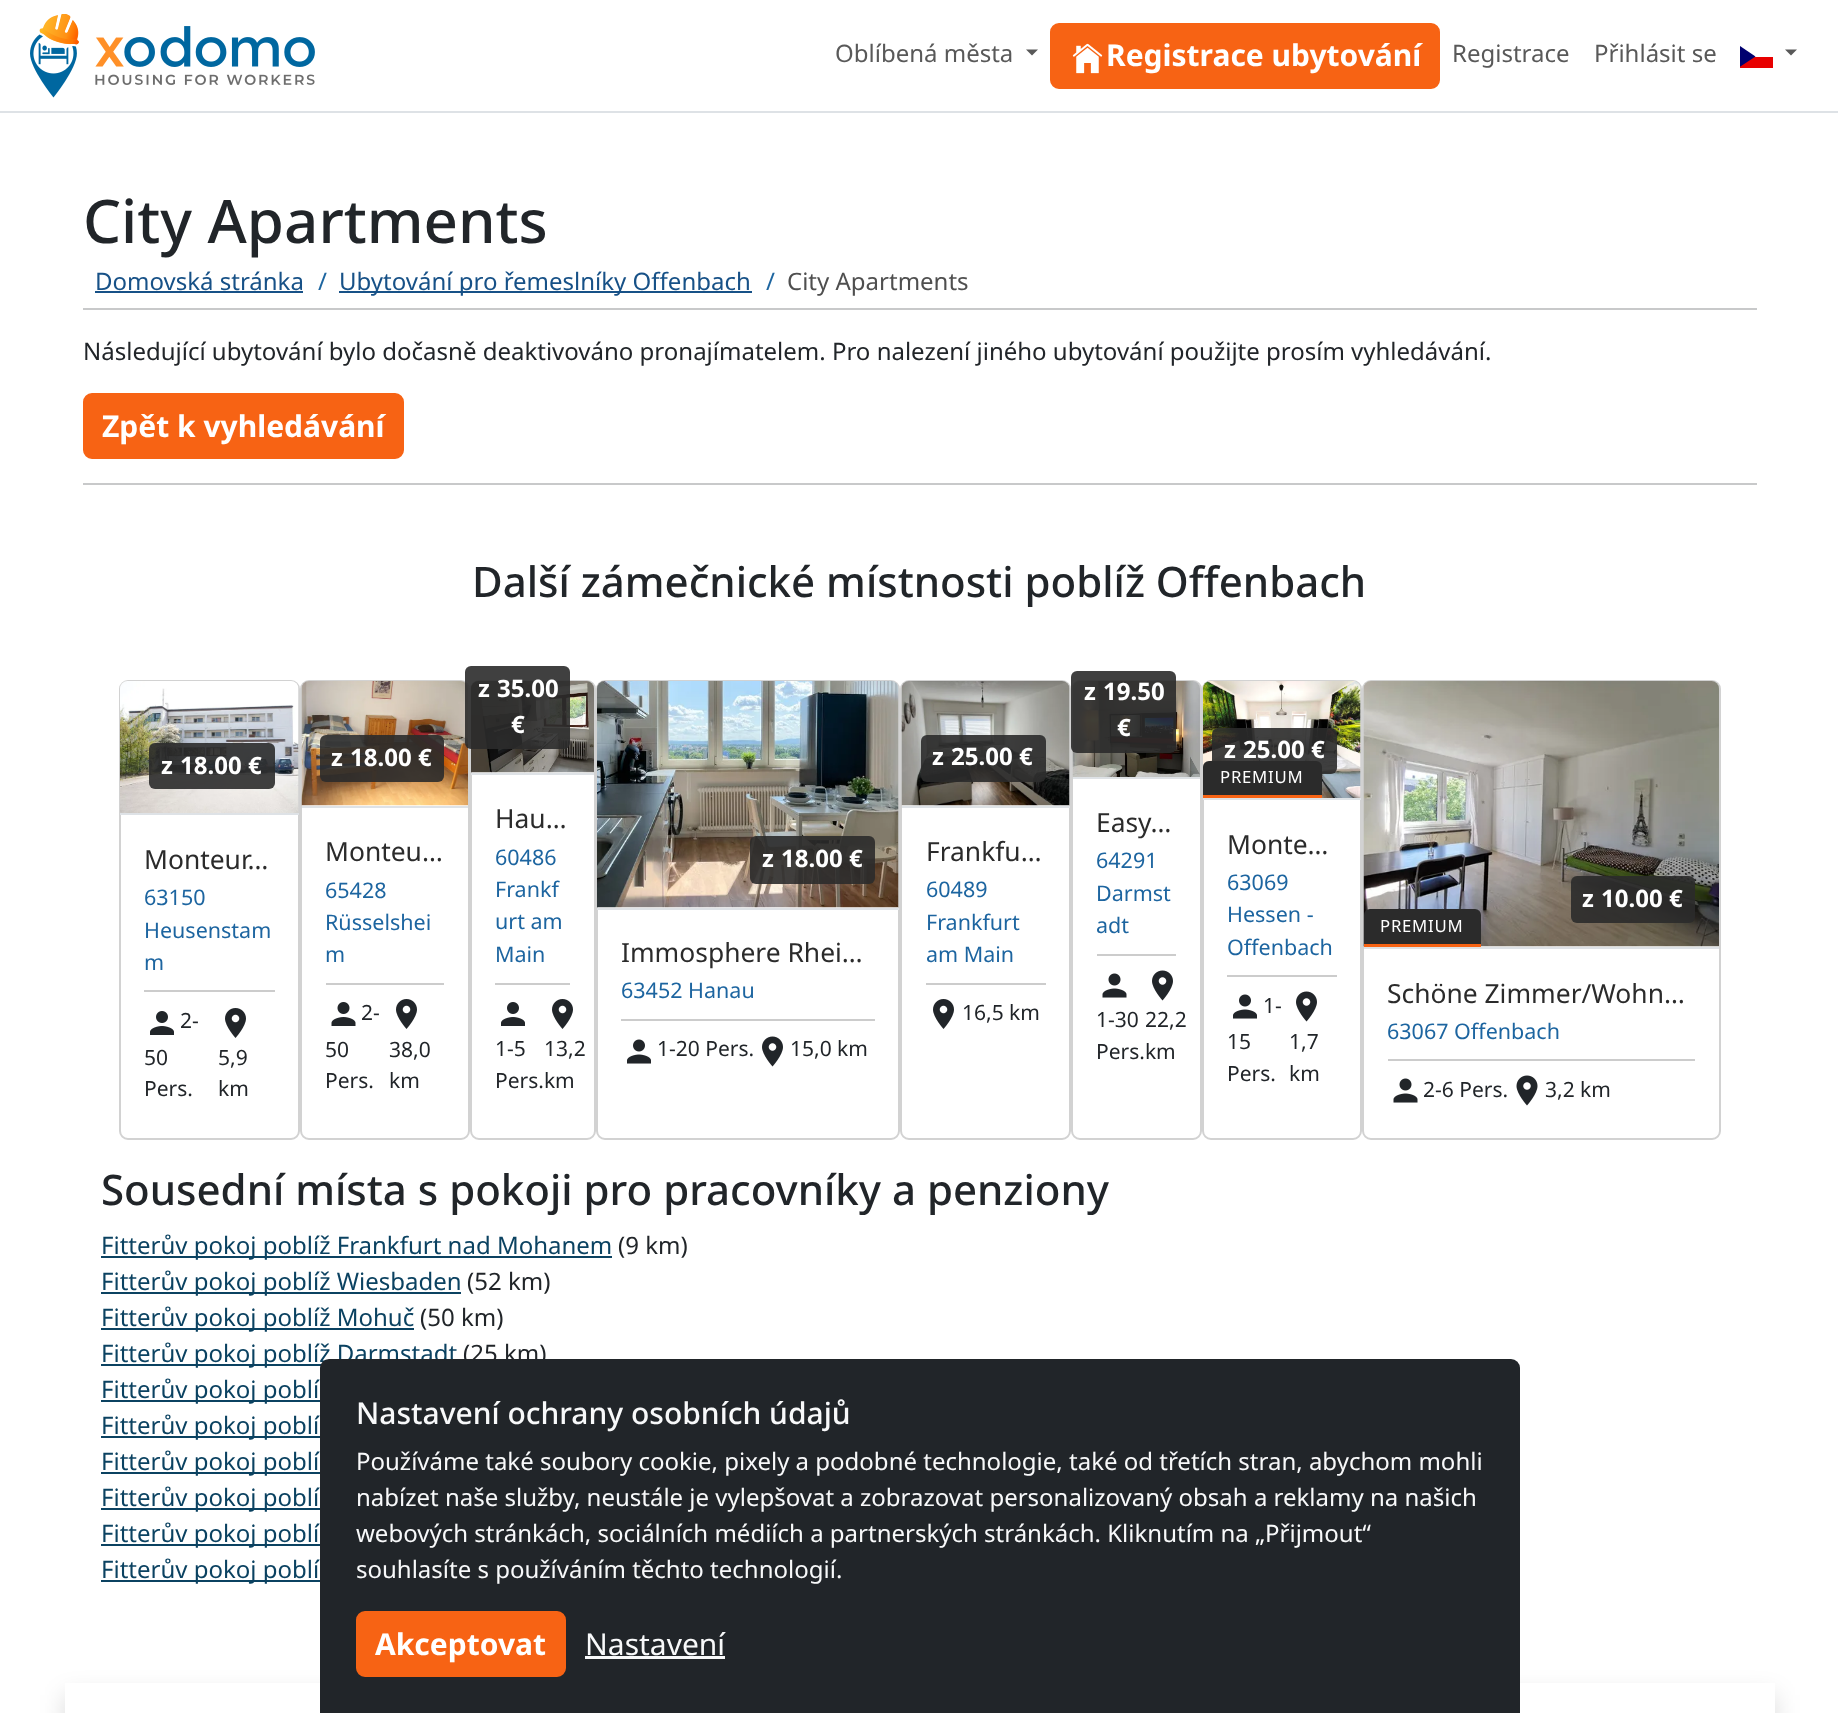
async function draw(canvas) {
	canvas.width = 1838;
	canvas.height = 1713;
	const c = canvas.getContext('2d');
	c.miterLimit = 4;
	c.fontKerning = 'normal';
	async function loadImage(src) {
		const img = new Image();
		img.src = src;
		await img.decode();
		return img;
	}

	c.fillStyle = '#fff';
	c.fillRect(0, 0, 1838, 1713);
	c.fillStyle = '#dee2e6';
	c.fillRect(0, 111, 1838, 2);
	c.drawImage(await loadImage('img1.png'), 30, 14, 49, 84);
	c.drawImage(await loadImage('img2.png'), 95, 26, 220, 59);
	c.font = '24px Noto Sans';
	c.fillStyle = '#595959';
	c.fillText('Oblíbená města', 835, 62);
	c.beginPath();
	c.moveTo(1026, 49.5);
	c.lineTo(1038, 49.5);
	c.lineTo(1032, 55.5);
	c.closePath();
	c.fill();
	c.fillStyle = '#f76314';
	c.beginPath();
	c.roundRect(1051, 24, 388, 64, 8);
	c.fill();
	c.strokeStyle = '#f76314';
	c.lineWidth = 2;
	c.stroke();
	c.drawImage(await loadImage('img3.png'), 1072, 43, 31, 31);
	c.font = 'bold 30px Noto Sans';
	c.fillStyle = '#fff';
	c.fillText('Registrace ubytování', 1106, 66);
	c.font = '24px Noto Sans';
	c.fillStyle = '#595959';
	c.fillText('Registrace', 1452, 62);
	c.fillText('Přihlásit se', 1594, 62);
	c.fillStyle = '#e80000';
	c.fillRect(1740, 57, 33, 11);
	c.save();
	c.beginPath();
	c.rect(1740, 44, 33, 24);
	c.clip();
	c.fillStyle = '#00006f';
	c.beginPath();
	c.moveTo(1736.5, 43.5);
	c.lineTo(1755.5, 56.5);
	c.lineTo(1736.5, 69);
	c.closePath();
	c.fill();
	c.restore();
	c.fillStyle = '#595959';
	c.beginPath();
	c.moveTo(1785, 49.5);
	c.lineTo(1797, 49.5);
	c.lineTo(1791, 55.5);
	c.closePath();
	c.fill();
	c.font = '500 60px Noto Sans';
	c.fillStyle = '#212529';
	c.fillText('City Apartments', 83, 243);
	c.font = '24px Noto Sans';
	c.fillStyle = '#175187';
	c.fillText('Domovská stránka', 95, 290);
	c.fillRect(95, 291, 208, 2);
	c.fillStyle = '#1d65a0';
	c.fillText('/', 318, 290);
	c.fillStyle = '#175187';
	c.fillRect(339, 291, 413, 2);
	c.fillText('Ubytování pro řemeslníky Offenbach', 339, 290);
	c.fillStyle = '#1d65a0';
	c.fillText('/', 766, 290);
	c.fillStyle = '#4f4f4f';
	c.fillText('City Apartments', 787, 290);
	c.fillStyle = '#c8c9ca';
	c.fillRect(83, 308, 1674, 2);
	c.fillStyle = '#212529';
	c.fillText('Následující ubytování bylo dočasně deaktivováno pronajímatelem. Pro nalezení jiného ubytování použijte prosím vyhledávání.', 83, 360);
	c.fillStyle = '#f76314';
	c.beginPath();
	c.roundRect(84, 394, 319, 64, 8);
	c.fill();
	c.stroke();
	c.font = 'bold 30px Noto Sans';
	c.fillStyle = '#fff';
	c.fillText('Zpět k vyhledávání', 102, 437);
	c.fillStyle = '#c8c9ca';
	c.fillRect(83, 483, 1674, 2);
	c.font = '500 42px Noto Sans';
	c.fillStyle = '#212529';
	c.fillText('Další zámečnické místnosti poblíž Offenbach', 472, 597);
	c.beginPath();
	c.roundRect(120, 681, 179, 458, 8);
	c.strokeStyle = '#d2d2d2';
	c.stroke();
	c.drawImage(await loadImage('img4.png'), 120, 681, 179, 132);
	c.fillStyle = '#2b2b2be6';
	c.beginPath();
	c.roundRect(149, 743, 126, 46, 6);
	c.fill();
	c.font = 'bold 24px Noto Sans';
	c.fillStyle = '#fff';
	c.fillText('z', 161, 774);
	c.fillText('18.00 €', 180, 774);
	c.fillStyle = '#dee2e6';
	c.fillRect(120, 813, 179, 2);
	c.fillStyle = '#ccc';
	c.fillRect(144, 990, 131, 2);
	c.font = '26.4px Noto Sans';
	c.fillStyle = '#2b2b2b';
	c.fillText('Monteur…', 144, 869);
	c.font = '21.5px Noto Sans';
	c.fillStyle = '#1d65a0';
	for (const [text, x, y] of [
		['63150', 144, 905],
		['Heusenstam', 144, 938],
		['m', 144, 970],
	]) {
		c.fillText(text, x, y);
	}
	c.drawImage(await loadImage('img5.png'), 150, 1011, 24, 24);
	c.font = '21px Noto Sans';
	c.fillStyle = '#212529';
	for (const [text, x, y] of [
		['2-', 180, 1028],
		['50', 144, 1065],
		['Pers.', 144, 1096],
	]) {
		c.fillText(text, x, y);
	}
	c.drawImage(await loadImage('img6.png'), 225, 1008, 21, 30);
	c.fillText('5,9', 218, 1065);
	c.fillText('km', 218, 1096);
	c.beginPath();
	c.roundRect(301, 681, 168, 458, 8);
	c.stroke();
	c.drawImage(await loadImage('img7.png'), 301, 681, 167, 125);
	c.fillStyle = '#2b2b2be6';
	c.beginPath();
	c.roundRect(320, 735, 124, 47, 6);
	c.fill();
	c.font = 'bold 24px Noto Sans';
	c.fillStyle = '#fff';
	c.fillText('z', 331, 766);
	c.fillText('18.00 €', 350, 766);
	c.fillStyle = '#dee2e6';
	c.fillRect(302, 806, 166, 2);
	c.fillStyle = '#ccc';
	c.fillRect(326, 983, 118, 2);
	c.font = '26.4px Noto Sans';
	c.fillStyle = '#2b2b2b';
	c.fillText('Monteu…', 325, 861);
	c.font = '21.5px Noto Sans';
	c.fillStyle = '#1d65a0';
	for (const [text, x, y] of [
		['65428', 325, 898],
		['Rüsselshei', 325, 930],
		['m', 325, 962],
	]) {
		c.fillText(text, x, y);
	}
	c.drawImage(await loadImage('img8.png'), 331, 1002, 25, 24);
	c.font = '21px Noto Sans';
	c.fillStyle = '#212529';
	for (const [text, x, y] of [
		['2-', 361, 1020],
		['50', 325, 1057],
		['Pers.', 325, 1088],
	]) {
		c.fillText(text, x, y);
	}
	c.drawImage(await loadImage('img6.png'), 396, 999, 21, 30);
	c.fillText('38,0', 389, 1057);
	c.fillText('km', 389, 1088);
	c.beginPath();
	c.roundRect(471, 681, 124, 458, 8);
	c.stroke();
	c.drawImage(await loadImage('img9.png'), 471, 681, 123, 92);
	c.fillStyle = '#2b2b2be6';
	c.beginPath();
	c.roundRect(465, 666, 105, 83, 6);
	c.fill();
	c.font = 'bold 24px Noto Sans';
	c.fillStyle = '#fff';
	for (const [text, x, y] of [
		['z', 478, 697],
		['35.00', 497, 697],
		['€', 511, 733],
	]) {
		c.fillText(text, x, y);
	}
	c.fillStyle = '#dee2e6';
	c.fillRect(471, 773, 123, 2);
	c.fillStyle = '#ccc';
	c.fillRect(495, 983, 75, 2);
	c.font = '26.4px Noto Sans';
	c.fillStyle = '#2b2b2b';
	c.fillText('Hau…', 495, 828);
	c.font = '21.5px Noto Sans';
	c.fillStyle = '#1d65a0';
	for (const [text, x, y] of [
		['60486', 495, 865],
		['Frankf', 495, 897],
		['urt am', 495, 929],
		['Main', 495, 962],
	]) {
		c.fillText(text, x, y);
	}
	c.drawImage(await loadImage('img6.png'), 552, 999, 21, 30);
	c.font = '21px Noto Sans';
	c.fillStyle = '#212529';
	c.fillText('13,2', 544, 1056);
	c.drawImage(await loadImage('img5.png'), 501, 1002, 24, 24);
	c.fillText('1-5', 495, 1056);
	c.fillText('Pers.km', 495, 1088);
	c.beginPath();
	c.roundRect(597, 681, 302, 458, 8);
	c.stroke();
	c.drawImage(await loadImage('img10.png'), 597, 681, 302, 227);
	c.fillStyle = '#2b2b2be6';
	c.beginPath();
	c.roundRect(750, 836, 125, 48, 6);
	c.fill();
	c.font = 'bold 24px Noto Sans';
	c.fillStyle = '#fff';
	c.fillText('z', 762, 867);
	c.fillText('18.00 €', 781, 867);
	c.fillStyle = '#dee2e6';
	c.fillRect(597, 908, 302, 2);
	c.fillStyle = '#ccc';
	c.fillRect(621, 1019, 254, 2);
	c.font = '26.4px Noto Sans';
	c.fillStyle = '#2b2b2b';
	c.fillText('Immosphere Rhei…', 621, 962);
	c.font = '21.5px Noto Sans';
	c.fillStyle = '#1d65a0';
	c.fillText('63452 Hanau', 621, 998);
	c.drawImage(await loadImage('img11.png'), 627, 1039, 24, 25);
	c.font = '21px Noto Sans';
	c.fillStyle = '#212529';
	c.fillText('1-20 Pers.', 657, 1056);
	c.drawImage(await loadImage('img12.png'), 762, 1036, 21, 31);
	c.fillText('15,0 km', 790, 1056);
	c.beginPath();
	c.roundRect(901, 681, 169, 458, 8);
	c.stroke();
	c.drawImage(await loadImage('img13.png'), 901, 681, 169, 125);
	c.fillStyle = '#2b2b2be6';
	c.beginPath();
	c.roundRect(921, 735, 125, 47, 6);
	c.fill();
	c.font = 'bold 24px Noto Sans';
	c.fillStyle = '#fff';
	c.fillText('z', 932, 765);
	c.fillText('25.00 €', 951, 765);
	c.fillStyle = '#dee2e6';
	c.fillRect(902, 806, 168, 2);
	c.fillStyle = '#ccc';
	c.fillRect(926, 983, 120, 2);
	c.font = '26.4px Noto Sans';
	c.fillStyle = '#2b2b2b';
	c.fillText('Frankfu…', 926, 861);
	c.font = '21.5px Noto Sans';
	c.fillStyle = '#1d65a0';
	for (const [text, x, y] of [
		['60489', 926, 897],
		['Frankfurt', 926, 930],
		['am Main', 926, 962],
	]) {
		c.fillText(text, x, y);
	}
	c.drawImage(await loadImage('img6.png'), 933, 999, 21, 30);
	c.font = '21px Noto Sans';
	c.fillStyle = '#212529';
	c.fillText('16,5 km', 962, 1020);
	c.beginPath();
	c.roundRect(1072, 681, 129, 458, 8);
	c.stroke();
	c.drawImage(await loadImage('img14.png'), 1072, 681, 128, 96);
	c.fillStyle = '#2b2b2be6';
	c.beginPath();
	c.roundRect(1071, 671, 105, 82, 6);
	c.fill();
	c.font = 'bold 24px Noto Sans';
	c.fillStyle = '#fff';
	for (const [text, x, y] of [
		['z', 1084, 700],
		['19.50', 1103, 700],
		['€', 1117, 736],
	]) {
		c.fillText(text, x, y);
	}
	c.fillStyle = '#dee2e6';
	c.fillRect(1073, 777, 127, 2);
	c.fillStyle = '#ccc';
	c.fillRect(1097, 954, 79, 2);
	c.font = '26.4px Noto Sans';
	c.fillStyle = '#2b2b2b';
	c.fillText('Easy…', 1096, 832);
	c.font = '21.5px Noto Sans';
	c.fillStyle = '#1d65a0';
	for (const [text, x, y] of [
		['64291', 1096, 868],
		['Darmst', 1096, 901],
		['adt', 1096, 933],
	]) {
		c.fillText(text, x, y);
	}
	c.drawImage(await loadImage('img15.png'), 1102, 973, 25, 25);
	c.font = '21px Noto Sans';
	c.fillStyle = '#212529';
	c.fillText('1-30', 1096, 1027);
	c.fillText('Pers.km', 1096, 1059);
	c.drawImage(await loadImage('img12.png'), 1152, 970, 21, 31);
	c.fillText('22,2', 1145, 1027);
	c.beginPath();
	c.roundRect(1203, 681, 158, 458, 8);
	c.stroke();
	c.drawImage(await loadImage('img16.png'), 1203, 681, 158, 117);
	c.fillStyle = '#2b2b2be6';
	c.beginPath();
	c.roundRect(1212, 728, 125, 46, 6);
	c.fill();
	c.font = 'bold 24px Noto Sans';
	c.fillStyle = '#fff';
	c.fillText('z', 1224, 758);
	c.fillText('25.00 €', 1243, 758);
	c.fillStyle = '#2b2b2b';
	c.beginPath();
	c.roundRect(1203, 761, 119, 37, [6, 6, 0, 0]);
	c.fill();
	c.fillStyle = '#f76314';
	c.fillRect(1203, 795, 119, 3);
	c.letterSpacing = '0.75px';
	c.font = '16.75px Noto Sans';
	c.fillStyle = '#fff';
	c.fillText('PREMIUM', 1220, 783);
	c.fillStyle = '#dee2e6';
	c.fillRect(1203, 798, 158, 2);
	c.fillStyle = '#ccc';
	c.fillRect(1227, 975, 110, 2);
	c.letterSpacing = '0px';
	c.font = '26.4px Noto Sans';
	c.fillStyle = '#2b2b2b';
	c.fillText('Monte…', 1227, 854);
	c.font = '21.5px Noto Sans';
	c.fillStyle = '#1d65a0';
	for (const [text, x, y] of [
		['63069', 1227, 890],
		['Hessen -', 1227, 922],
		['Offenbach', 1227, 955],
	]) {
		c.fillText(text, x, y);
	}
	c.drawImage(await loadImage('img11.png'), 1233, 994, 24, 25);
	c.font = '21px Noto Sans';
	c.fillStyle = '#212529';
	for (const [text, x, y] of [
		['1-', 1263, 1013],
		['15', 1227, 1049],
		['Pers.', 1227, 1081],
	]) {
		c.fillText(text, x, y);
	}
	c.drawImage(await loadImage('img12.png'), 1296, 991, 21, 31);
	c.fillText('1,7', 1289, 1049);
	c.fillText('km', 1289, 1081);
	c.beginPath();
	c.roundRect(1363, 681, 357, 458, 8);
	c.stroke();
	c.drawImage(await loadImage('img17.png'), 1363, 681, 356, 266);
	c.fillStyle = '#2b2b2be6';
	c.beginPath();
	c.roundRect(1571, 876, 124, 47, 6);
	c.fill();
	c.font = 'bold 24px Noto Sans';
	c.fillStyle = '#fff';
	c.fillText('z', 1582, 907);
	c.fillText('10.00 €', 1601, 907);
	c.fillStyle = '#2b2b2b';
	c.beginPath();
	c.roundRect(1364, 909, 117, 38, [6, 6, 0, 0]);
	c.fill();
	c.fillStyle = '#f76314';
	c.fillRect(1364, 944, 117, 3);
	c.letterSpacing = '0.75px';
	c.font = '16.75px Noto Sans';
	c.fillStyle = '#fff';
	c.fillText('PREMIUM', 1380, 932);
	c.fillStyle = '#dee2e6';
	c.fillRect(1364, 947, 355, 2);
	c.fillStyle = '#ccc';
	c.fillRect(1388, 1059, 307, 2);
	c.letterSpacing = '0px';
	c.font = '26.4px Noto Sans';
	c.fillStyle = '#2b2b2b';
	c.fillText('Schöne Zimmer/Wohn…', 1387, 1003);
	c.font = '21.5px Noto Sans';
	c.fillStyle = '#1d65a0';
	c.fillText('63067 Offenbach', 1387, 1039);
	c.drawImage(await loadImage('img15.png'), 1393, 1078, 25, 25);
	c.font = '21px Noto Sans';
	c.fillStyle = '#212529';
	c.fillText('2-6 Pers.', 1423, 1097);
	c.drawImage(await loadImage('img18.png'), 1516, 1075, 22, 31);
	c.fillText('3,2 km', 1545, 1097);
	c.font = '500 42px Noto Sans';
	c.fillText('Sousední místa s pokoji pro pracovníky a penziony', 101, 1205);
	c.fillStyle = '#0b4261';
	c.fillRect(101, 1256, 511, 2);
	c.font = '24px Noto Sans';
	c.fillText('Fitterův pokoj poblíž Frankfurt nad Mohanem', 101, 1254);
	c.fillStyle = '#212529';
	c.fillText('(9 km)', 618, 1254);
	c.fillStyle = '#0b4261';
	c.fillRect(101, 1292, 360, 2);
	c.fillText('Fitterův pokoj poblíž Wiesbaden', 101, 1290);
	c.fillStyle = '#212529';
	c.fillText('(52 km)', 467, 1290);
	c.fillStyle = '#0b4261';
	c.fillRect(101, 1328, 313, 2);
	c.fillText('Fitterův pokoj poblíž Mohuč', 101, 1326);
	c.fillStyle = '#212529';
	c.fillText('(50 km)', 420, 1326);
	c.fillStyle = '#0b4261';
	c.fillRect(101, 1364, 220, 2);
	c.fillText('Fitterův pokoj poblíž Darmstadt', 101, 1362);
	c.fillStyle = '#212529';
	c.fillText('(25 km)', 463, 1362);
	c.fillStyle = '#0b4261';
	c.fillRect(101, 1400, 219, 2);
	c.fillText('Fitterův pokoj poblí', 101, 1398);
	c.fillRect(101, 1436, 219, 2);
	c.fillText('Fitterův pokoj poblí', 101, 1434);
	c.fillRect(101, 1472, 219, 2);
	c.fillText('Fitterův pokoj poblí', 101, 1470);
	c.fillRect(101, 1508, 219, 2);
	c.fillText('Fitterův pokoj poblí', 101, 1506);
	c.fillRect(101, 1544, 219, 2);
	c.fillText('Fitterův pokoj poblí', 101, 1542);
	c.fillRect(101, 1580, 219, 2);
	c.fillText('Fitterův pokoj poblí', 101, 1578);
	c.save();
	c.beginPath();
	c.moveTo(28, 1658);
	c.lineTo(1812, 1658);
	c.lineTo(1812, 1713);
	c.lineTo(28, 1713);
	c.closePath();
	c.moveTo(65, 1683);
	c.lineTo(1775, 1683);
	c.lineTo(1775, 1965);
	c.lineTo(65, 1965);
	c.closePath();
	c.clip('evenodd');
	c.fillStyle = '#00000026';
	c.filter = 'blur(12px)';
	c.beginPath();
	c.rect(65, 1695, 1710, 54);
	c.fill();
	c.filter = 'none';
	c.restore();
	c.fillStyle = '#212529';
	c.beginPath();
	c.roundRect(320, 1359, 1200, 354, [9, 9, 0, 0]);
	c.fill();
	c.font = '500 30px Noto Sans';
	c.fillStyle = '#f8f9fa';
	c.fillText('Nastavení ochrany osobních údajů', 356, 1424);
	c.font = '24px Noto Sans';
	for (const [text, x, y] of [
		['Používáme také soubory cookie, pixely a podobné technologie, také od třetích stran, abychom mohli', 356, 1470],
		['nabízet naše služby, neustále je vylepšovat a zobrazovat personalizovaný obsah a reklamy na našich', 356, 1506],
		['webových stránkách, sociálních médiích a partnerských stránkách. Kliknutím na „Přijmout“', 356, 1542],
		['souhlasíte s používáním těchto technologií.', 356, 1578],
	]) {
		c.fillText(text, x, y);
	}
	c.fillStyle = '#f76314';
	c.beginPath();
	c.roundRect(357, 1612, 208, 64, 8);
	c.fill();
	c.strokeStyle = '#f76314';
	c.stroke();
	c.font = 'bold 30px Noto Sans';
	c.fillStyle = '#fff';
	c.fillText('Akceptovat', 375, 1655);
	c.font = '30px Noto Sans';
	c.fillStyle = '#f8f9fa';
	c.fillText('Nastavení', 585, 1655);
	c.fillRect(585, 1656, 140, 3);
}

draw(document.querySelector('canvas'));
